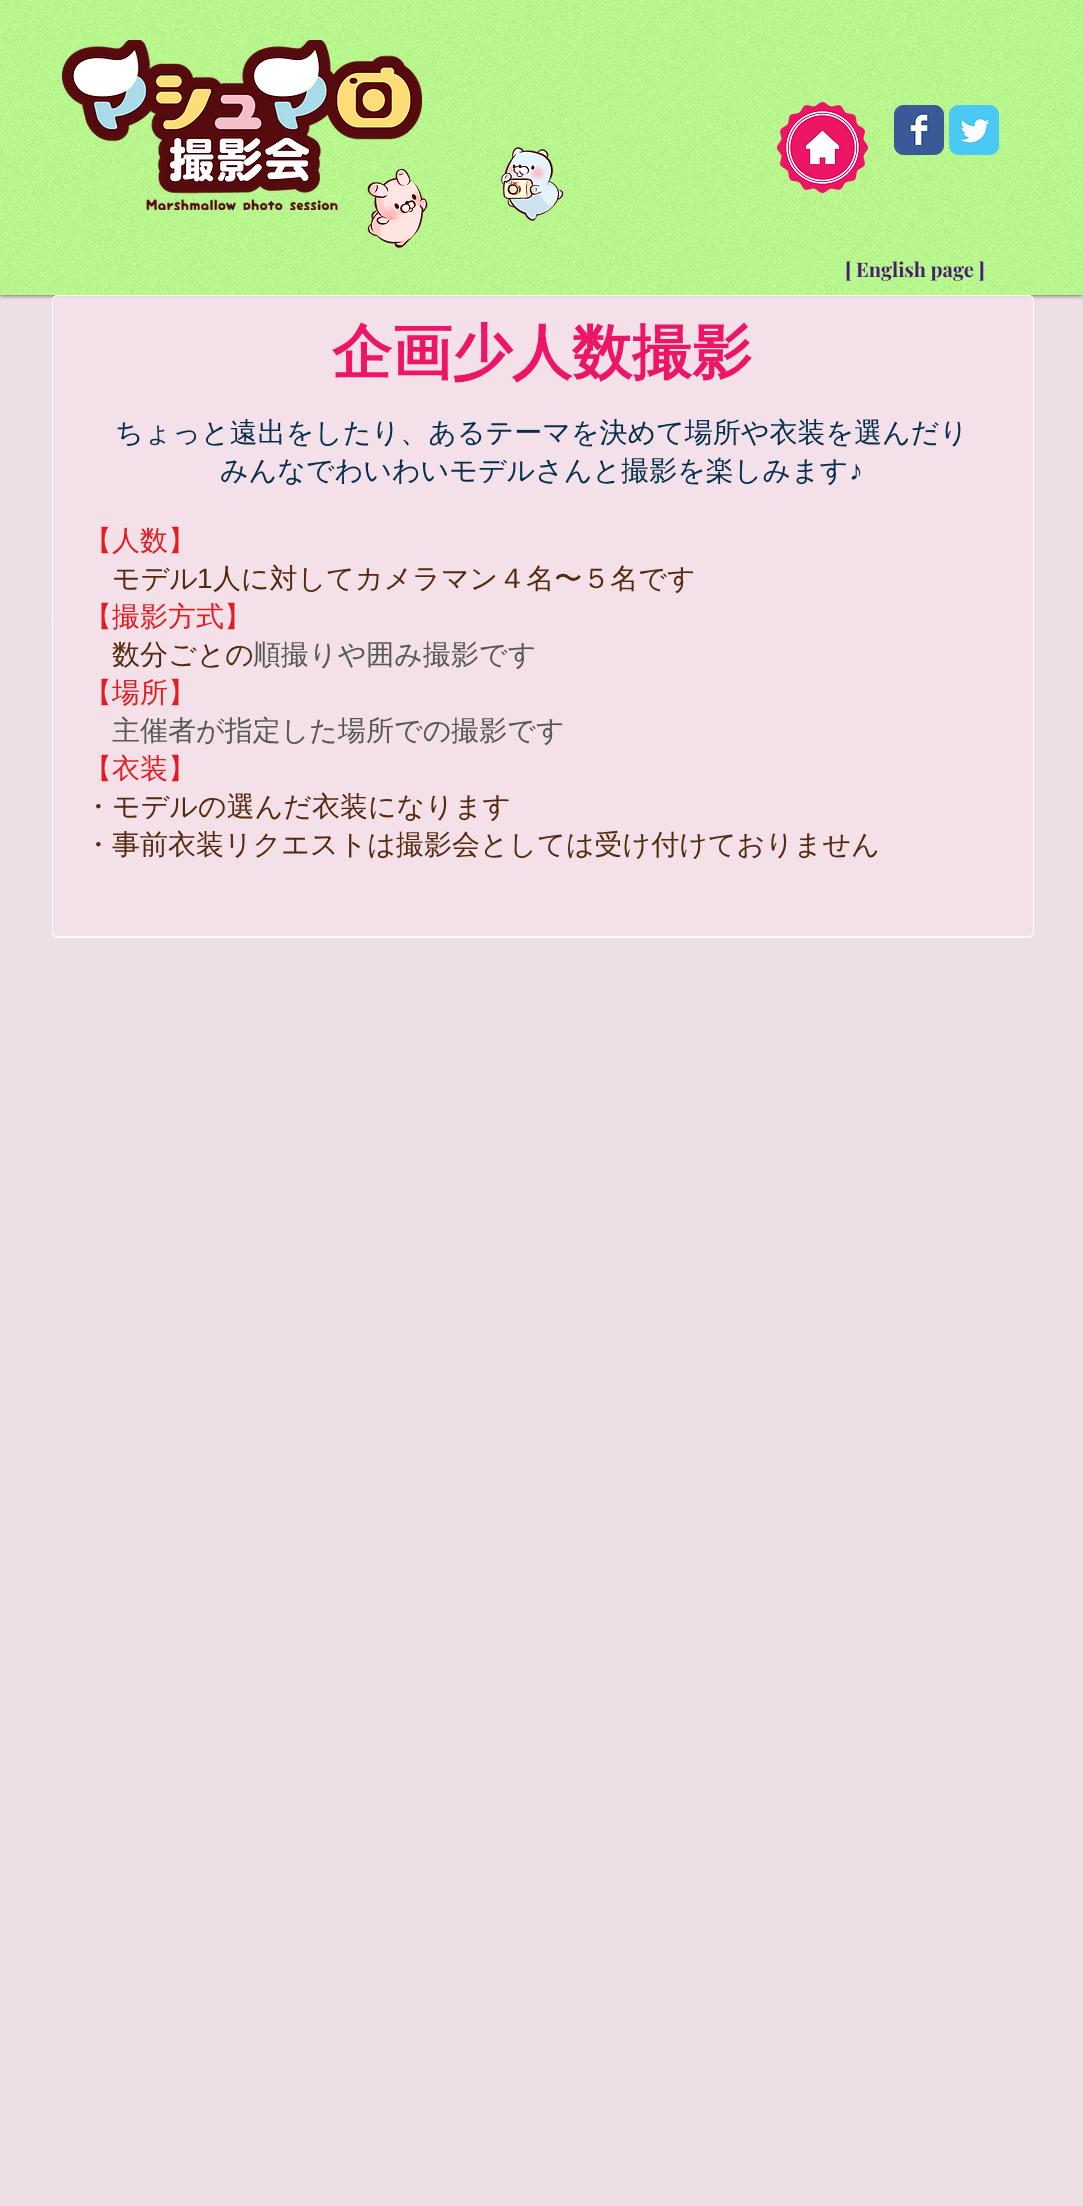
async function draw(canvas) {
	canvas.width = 1083;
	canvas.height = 2206;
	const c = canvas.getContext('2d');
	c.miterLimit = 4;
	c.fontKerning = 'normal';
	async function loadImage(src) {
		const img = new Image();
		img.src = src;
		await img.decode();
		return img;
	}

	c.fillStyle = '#eddfe4';
	c.fillRect(0, 0, 1083, 2206);
	c.fillStyle = '#000000b3';
	c.filter = 'blur(2.5px)';
	c.beginPath();
	c.rect(0, 0, 1083, 295);
	c.fill();
	c.filter = 'none';
	c.fillStyle = '#bdfd91';
	c.fillRect(0, 0, 1083, 295);
	c.drawImage(await loadImage('img1.png'), 0, 0, 1083, 295);
	c.drawImage(await loadImage('img2.png'), 62, 40, 360, 170);
	c.drawImage(await loadImage('img3.png'), 776, 101, 93, 93);
	c.drawImage(await loadImage('img4.png'), 894, 105, 50, 50);
	c.drawImage(await loadImage('img5.png'), 949, 105, 50, 50);
	c.drawImage(await loadImage('img6.png'), 367, 168, 61, 80);
	c.drawImage(await loadImage('img7.png'), 501, 147, 63, 74);
	c.font = 'bold 20px Playfair Display';
	c.fillStyle = '#471d70';
	c.fillText('[ English page ]', 845, 277);
	c.fillStyle = '#f5e0e8cc';
	c.beginPath();
	c.roundRect(52, 295, 982, 643, 5);
	c.fill();
	c.fillStyle = '#fcf7f9';
	c.beginPath();
	c.moveTo(53, 932);
	c.bezierCurveTo(53, 935, 54, 937, 57, 937);
	c.lineTo(1029, 937);
	c.bezierCurveTo(1032, 937, 1033, 935, 1033, 932);
	c.bezierCurveTo(1033, 934, 1031, 936, 1029, 936);
	c.lineTo(57, 936);
	c.bezierCurveTo(55, 936, 53, 934, 53, 932);
	c.closePath();
	c.fill();
	c.beginPath();
	c.roundRect(52.5, 295.5, 981, 642, 4.5);
	c.strokeStyle = '#fff';
	c.stroke();
	c.font = 'bold 60px WenQuanYi Zen Hei';
	c.fillStyle = '#ed1566';
	c.fillText('企画少人数撮影', 332, 373);
	c.font = '500 28px WenQuanYi Zen Hei';
	c.fillStyle = '#042d4e';
	c.fillText('ちょっと遠出をしたり、あるテーマを決めて場所や衣装を選んだり', 115, 442);
	c.fillText('みんなでわいわいモデルさんと撮影を楽しみます', 220, 480);
	c.font = '28px Liberation Sans';
	c.fillText('♪', 849, 480);
	c.font = '500 28px WenQuanYi Zen Hei';
	c.fillStyle = '#e21c21';
	c.fillText('【人数】', 84, 550);
	c.fillStyle = '#542a0f';
	c.fillText('モデル', 112, 588);
	c.font = '28px Liberation Sans';
	c.fillText('1', 197, 588);
	c.font = '500 28px WenQuanYi Zen Hei';
	c.fillText('人に対してカメラマン４名〜５名です', 213, 588);
	c.fillStyle = '#e21c21';
	c.fillText('【撮影方式】', 84, 626);
	c.fillStyle = '#542a0f';
	c.fillText('数分ごとの', 112, 664);
	c.fillStyle = '#585757';
	c.fillText('順撮りや囲み撮影です', 253, 664);
	c.fillStyle = '#e21c21';
	c.fillText('【場所】', 84, 702);
	c.fillStyle = '#585757';
	c.fillText('主催者が指定した場所での撮影です', 112, 740);
	c.fillStyle = '#e21c21';
	c.fillText('【衣装】', 84, 778);
	c.fillStyle = '#542a0f';
	c.fillText('・モデルの選んだ衣装になります', 84, 816);
	c.fillText('・事前衣装リクエストは撮影会としては受け付けておりません', 84, 854);
}

draw(document.querySelector('canvas'));
